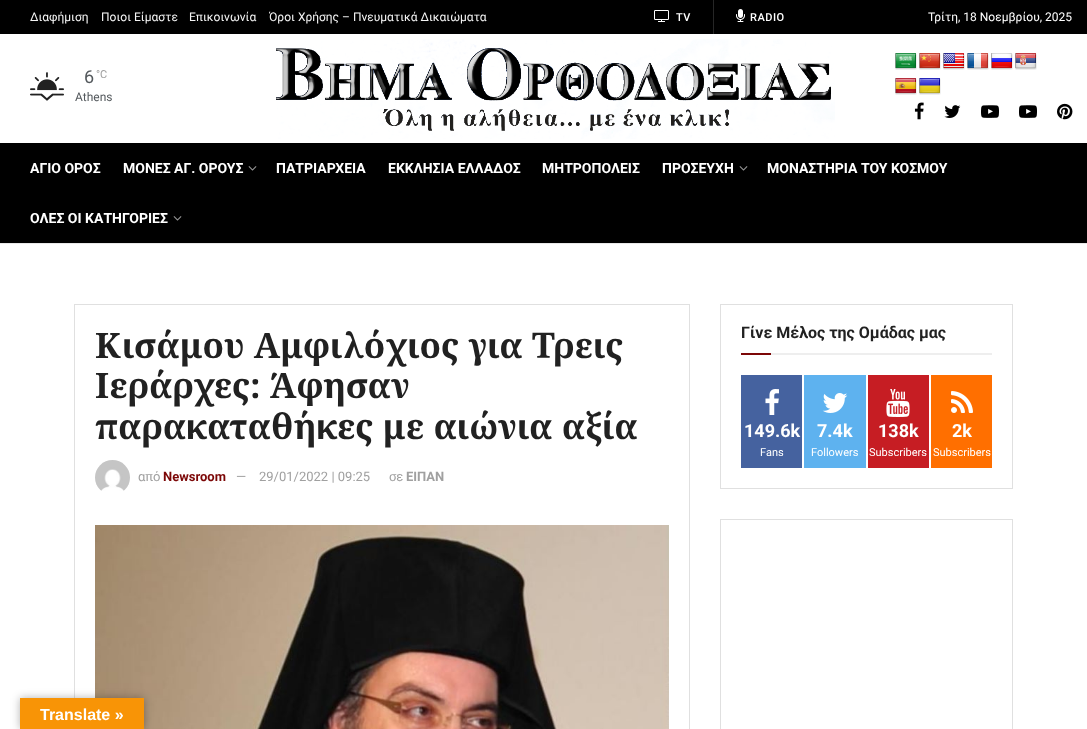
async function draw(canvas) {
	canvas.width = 1087;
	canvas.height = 729;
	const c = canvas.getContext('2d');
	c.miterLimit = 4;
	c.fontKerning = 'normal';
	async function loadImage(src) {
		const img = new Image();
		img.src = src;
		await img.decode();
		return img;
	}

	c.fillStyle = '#fff';
	c.fillRect(0, 0, 1087, 729);
	c.fillStyle = '#000';
	c.fillRect(0, 0, 1087, 34);
	c.font = '12px Roboto';
	c.fillStyle = '#f5f5f5';
	for (const [text, x, y] of [
		['Διαφήμιση', 30, 21],
		['Ποιοι Είμαστε', 101, 21],
		['Επικοινωνία', 189, 21],
		['Όροι Χρήσης – Πνευματικά Δικαιώματα', 269, 21],
	]) {
		c.fillText(text, x, y);
	}
	c.fillStyle = '#262626';
	c.fillRect(713, 0, 1, 34);
	c.drawImage(await loadImage('img1.png'), 654, 10, 15, 12);
	c.letterSpacing = '0.5px';
	c.font = '500 11px Roboto';
	c.fillStyle = '#fff';
	c.fillText('TV', 676, 21);
	c.drawImage(await loadImage('img2.png'), 736, 9, 9, 13);
	c.fillText('RADIO', 750, 21);
	c.letterSpacing = '0px';
	c.font = '12px Roboto';
	c.fillText('Τρίτη, 18 Νοεμβρίου, 2025', 928, 21);
	c.drawImage(await loadImage('img3.png'), 30, 72, 34, 29);
	c.font = '18px Roboto';
	c.fillStyle = '#53585c';
	c.fillText('6', 84, 83);
	c.font = '11px Roboto';
	c.fillStyle = '#a0a0a0';
	c.fillText('°C', 96, 78);
	c.font = '12px Roboto';
	c.fillStyle = '#53585c';
	c.fillText('Athens', 75, 101);
	c.drawImage(await loadImage('img4.png'), 276, 39, 559, 100);
	c.drawImage(await loadImage('img5.png'), 895, 53, 22, 17);
	c.drawImage(await loadImage('img6.png'), 919, 53, 22, 17);
	c.drawImage(await loadImage('img7.png'), 943, 53, 22, 17);
	c.drawImage(await loadImage('img8.png'), 967, 53, 22, 17);
	c.drawImage(await loadImage('img9.png'), 991, 53, 22, 17);
	c.drawImage(await loadImage('img10.png'), 1015, 53, 22, 17);
	c.drawImage(await loadImage('img11.png'), 895, 78, 22, 17);
	c.drawImage(await loadImage('img12.png'), 919, 78, 22, 17);
	c.drawImage(await loadImage('img13.png'), 914, 102, 10, 18);
	c.drawImage(await loadImage('img14.png'), 944, 105, 17, 13);
	c.drawImage(await loadImage('img15.png'), 981, 105, 18, 13);
	c.drawImage(await loadImage('img15.png'), 1019, 105, 18, 13);
	c.drawImage(await loadImage('img16.png'), 1057, 103, 16, 17);
	c.fillStyle = '#000';
	c.fillRect(0, 143, 1087, 100);
	c.fillStyle = '#e8e8e8';
	c.fillRect(0, 243, 1087, 1);
	c.font = 'bold 14px Roboto';
	c.fillStyle = '#fff';
	c.fillText('ΑΓΙΟ ΟΡΟΣ', 30, 173);
	c.fillText('ΜΟΝΕΣ ΑΓ. ΟΡΟΥΣ', 123, 173);
	c.drawImage(await loadImage('img17.png'), 248, 166, 9, 5);
	for (const [text, x, y] of [
		['ΠΑΤΡΙΑΡΧΕΙΑ', 276, 173],
		['ΕΚΚΛΗΣΙΑ ΕΛΛΑΔΟΣ', 388, 173],
		['ΜΗΤΡΟΠΟΛΕΙΣ', 542, 173],
		['ΠΡΟΣΕΥΧΗ', 662, 173],
	]) {
		c.fillText(text, x, y);
	}
	c.drawImage(await loadImage('img17.png'), 739, 166, 9, 5);
	c.fillText('ΜΟΝΑΣΤΗΡΙΑ ΤΟΥ ΚΟΣΜΟΥ', 767, 173);
	c.fillText('ΟΛΕΣ ΟΙ ΚΑΤΗΓΟΡΙΕΣ', 30, 223);
	c.drawImage(await loadImage('img17.png'), 173, 216, 9, 5);
	c.strokeStyle = '#e0e0e0';
	c.strokeRect(74.5, 304.5, 615, 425);
	c.letterSpacing = '0.1px';
	c.font = 'bold 35px Noto Serif';
	c.fillStyle = '#212121';
	for (const [text, x, y] of [
		['Κισάμου Αμφιλόχιος για Τρεις', 95, 358],
		['Ιεράρχες: Άφησαν', 95, 398],
		['παρακαταθήκες με αιώνια αξία', 95, 439],
	]) {
		c.fillText(text, x, y);
	}
	c.drawImage(await loadImage('img18.png'), 95, 460, 35, 31);
	c.letterSpacing = '0px';
	c.font = '13px Roboto';
	c.fillStyle = '#a0a0a0';
	c.fillText('από', 138, 481);
	c.font = 'bold 13px Roboto';
	c.fillStyle = '#7c0707';
	c.fillText('Newsroom', 163, 481);
	c.font = '13px Roboto';
	c.fillStyle = '#a0a0a0';
	for (const [text, x, y] of [
		['—', 236, 481],
		['29/01/2022 | 09:25', 259, 481],
		['σε', 389, 481],
	]) {
		c.fillText(text, x, y);
	}
	c.font = 'bold 13px Roboto';
	c.fillText('ΕΙΠΑΝ', 406, 481);
	c.drawImage(await loadImage('img19.png'), 95, 525, 574, 204);
	c.strokeRect(720.5, 304.5, 292, 184);
	c.fillStyle = '#eee';
	c.fillRect(771, 353, 221, 2);
	c.font = 'bold 16px Roboto';
	c.fillStyle = '#212121';
	c.fillText('Γίνε Μέλος της Ομάδας μας', 741, 338);
	c.fillStyle = '#7c0707';
	c.fillRect(741, 353, 30, 2);
	c.fillStyle = '#45629f';
	c.fillRect(741, 375, 61, 93);
	c.drawImage(await loadImage('img20.png'), 765, 389, 14, 26);
	c.font = 'bold 18px Roboto';
	c.fillStyle = '#fff';
	c.fillText('149.6k', 744, 437);
	c.font = '11px Roboto';
	c.fillText('Fans', 760, 456);
	c.fillStyle = '#5eb2ef';
	c.fillRect(804, 375, 62, 93);
	c.drawImage(await loadImage('img21.png'), 822, 393, 26, 20);
	c.font = 'bold 18px Roboto';
	c.fillStyle = '#fff';
	c.fillText('7.4k', 817, 437);
	c.font = '11px Roboto';
	c.fillText('Followers', 811, 456);
	c.fillStyle = '#c61d23';
	c.fillRect(868, 375, 61, 93);
	c.drawImage(await loadImage('img22.png'), 886, 389, 24, 28);
	c.font = 'bold 18px Roboto';
	c.fillStyle = '#fff';
	c.fillText('138k', 878, 437);
	c.font = '11px Roboto';
	c.fillText('Subscribers', 869, 456);
	c.fillStyle = '#ff6f00';
	c.fillRect(931, 375, 61, 93);
	c.drawImage(await loadImage('img23.png'), 951, 391, 22, 22);
	c.font = 'bold 18px Roboto';
	c.fillStyle = '#fff';
	c.fillText('2k', 952, 437);
	c.font = '11px Roboto';
	c.fillText('Subscribers', 933, 456);
	c.strokeRect(720.5, 519.5, 292, 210);
	c.fillStyle = '#0000004d';
	c.filter = 'blur(4.5px)';
	c.beginPath();
	c.rect(20, 698, 124, 31);
	c.fill();
	c.filter = 'none';
	c.fillStyle = '#f89406';
	c.fillRect(20, 698, 124, 31);
	c.font = 'bold 16px Liberation Sans';
	c.fillStyle = '#fff';
	c.fillText('Translate »', 40, 720);
}

draw(document.querySelector('canvas'));
